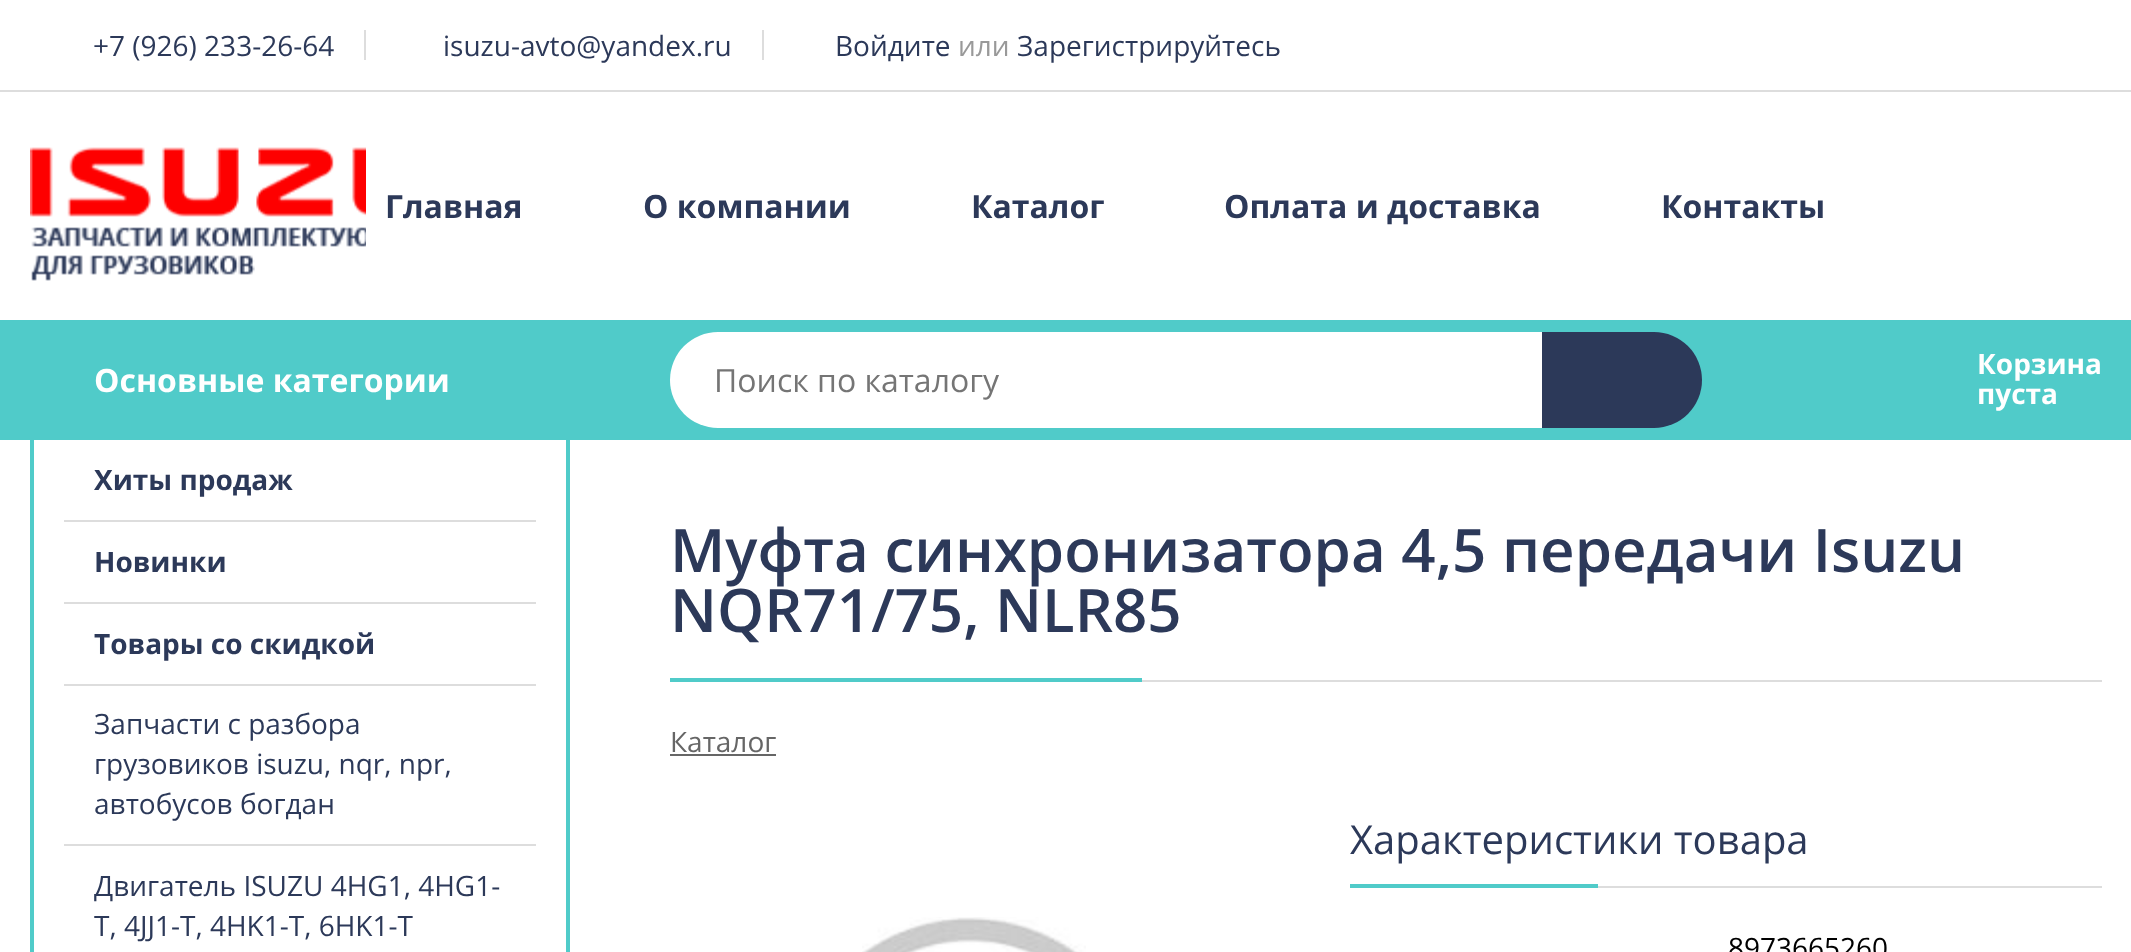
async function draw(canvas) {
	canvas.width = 2131;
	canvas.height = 952;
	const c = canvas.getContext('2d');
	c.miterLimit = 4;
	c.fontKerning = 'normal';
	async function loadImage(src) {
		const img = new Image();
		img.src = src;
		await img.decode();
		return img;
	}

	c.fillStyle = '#fff';
	c.fillRect(0, 0, 2131, 952);
	c.fillStyle = '#ddd';
	c.fillRect(0, 90, 2131, 2);
	c.font = '28px Open Sans';
	c.fillStyle = '#2c3959';
	c.fillText('+7 (926) 233-26-64', 93, 56);
	c.fillStyle = '#ddd';
	c.fillRect(364, 30, 2, 30);
	c.fillStyle = '#2c3959';
	c.fillText('isuzu-avto@yandex.ru', 443, 56);
	c.fillStyle = '#ddd';
	c.fillRect(762, 30, 2, 30);
	c.fillStyle = '#2c3959';
	c.fillText('Войдите', 835, 56);
	c.fillStyle = '#999';
	c.fillText('или', 958, 56);
	c.fillStyle = '#2c3959';
	c.fillText('Зарегистрируйтесь', 1017, 56);
	c.drawImage(await loadImage('img1.png'), 30, 147, 336, 134);
	c.font = 'bold 32px Open Sans';
	for (const [text, x, y] of [
		['Главная', 385, 218],
		['О компании', 643, 218],
		['Каталог', 971, 218],
		['Оплата и доставка', 1224, 218],
		['Контакты', 1661, 218],
	]) {
		c.fillText(text, x, y);
	}
	c.fillStyle = '#50cbc9';
	c.fillRect(0, 320, 2131, 120);
	c.fillStyle = '#fff';
	c.fillText('Основные категории', 94, 392);
	c.beginPath();
	c.roundRect(670, 332, 872, 96, [48, 0, 0, 48]);
	c.fill();
	c.font = '32px Open Sans';
	c.fillStyle = '#757575';
	c.fillText('Поиск по каталогу', 714, 392);
	c.fillStyle = '#2c3959';
	c.beginPath();
	c.roundRect(1542, 332, 160, 96, [0, 48, 48, 0]);
	c.fill();
	c.font = 'bold 28px Open Sans';
	c.fillStyle = '#fff';
	c.fillText('Корзина', 1977, 374);
	c.fillText('пуста', 1977, 404);
	c.fillStyle = '#50cbc9';
	c.beginPath();
	c.moveTo(30, 440);
	c.lineTo(570, 440);
	c.lineTo(570, 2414);
	c.bezierCurveTo(570, 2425, 561, 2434, 550, 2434);
	c.lineTo(50, 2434);
	c.bezierCurveTo(39, 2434, 30, 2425, 30, 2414);
	c.closePath();
	c.moveTo(34, 440);
	c.lineTo(566, 440);
	c.lineTo(566, 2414);
	c.bezierCurveTo(566, 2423, 559, 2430, 550, 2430);
	c.lineTo(50, 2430);
	c.bezierCurveTo(41, 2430, 34, 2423, 34, 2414);
	c.closePath();
	c.fill('evenodd');
	c.fillStyle = '#2c3959';
	c.fillText('Хиты продаж', 94, 490);
	c.fillStyle = '#ddd';
	c.fillRect(64, 520, 472, 2);
	c.fillStyle = '#2c3959';
	c.fillText('Новинки', 94, 572);
	c.fillStyle = '#ddd';
	c.fillRect(64, 602, 472, 2);
	c.fillStyle = '#2c3959';
	c.fillText('Товары со скидкой', 94, 654);
	c.fillStyle = '#ddd';
	c.fillRect(64, 684, 472, 2);
	c.font = '28px Open Sans';
	c.fillStyle = '#2c3959';
	for (const [text, x, y] of [
		['Запчасти с разбора', 94, 734],
		['грузовиков isuzu, nqr, npr,', 94, 774],
		['автобусов богдан', 94, 814],
	]) {
		c.fillText(text, x, y);
	}
	c.fillStyle = '#ddd';
	c.fillRect(64, 844, 472, 2);
	c.fillStyle = '#2c3959';
	c.fillText('Двигатель ISUZU 4HG1, 4HG1-', 94, 896);
	c.fillText('T, 4JJ1-T, 4HK1-T, 6HK1-T', 94, 936);
	c.fillStyle = '#ddd';
	c.fillRect(1142, 680, 960, 2);
	c.font = '600 60px Open Sans';
	c.fillStyle = '#2c3959';
	c.fillText('Муфта синхронизатора 4,5 передачи Isuzu', 670, 572);
	c.fillText('NQR71/75, NLR85', 670, 632);
	c.fillStyle = '#50cbc9';
	c.fillRect(670, 678, 472, 4);
	c.font = '28px Open Sans';
	c.fillStyle = '#666';
	c.fillText('Каталог', 670, 752);
	c.fillRect(670, 754, 106, 2);
	c.drawImage(await loadImage('img2.png'), 862, 917, 224, 35);
	c.fillStyle = '#ddd';
	c.fillRect(1598, 886, 504, 2);
	c.font = '40px Open Sans';
	c.fillStyle = '#2c3959';
	c.fillText('Характеристики товара', 1350, 854);
	c.fillStyle = '#50cbc9';
	c.fillRect(1350, 884, 248, 4);
	c.font = '28px Open Sans';
	c.fillStyle = '#000';
	c.fillText('8973665260', 1728, 958);
}

draw(document.querySelector('canvas'));
